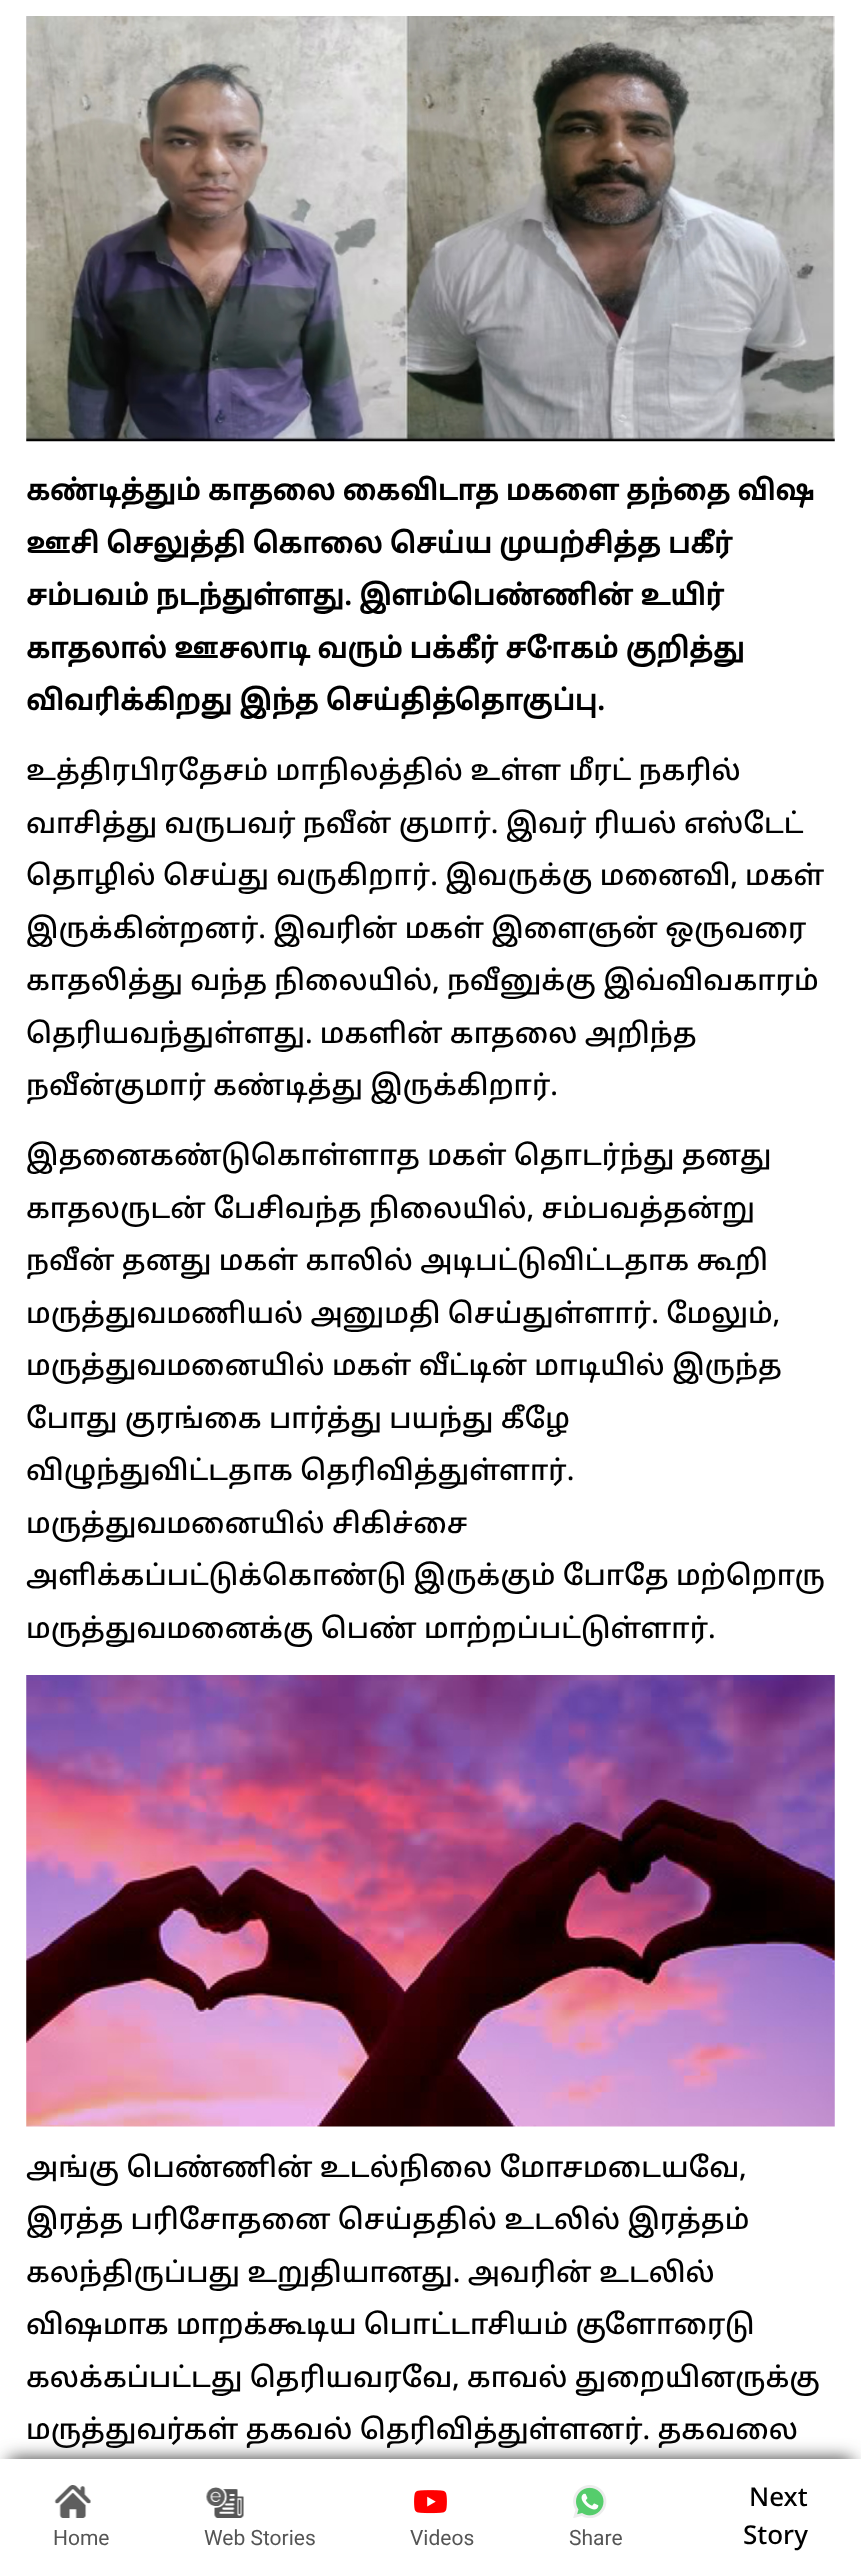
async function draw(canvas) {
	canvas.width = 861;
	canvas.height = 2564;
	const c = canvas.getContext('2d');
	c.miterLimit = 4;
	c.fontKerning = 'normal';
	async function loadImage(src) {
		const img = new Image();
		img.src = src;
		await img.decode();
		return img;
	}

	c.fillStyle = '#fff';
	c.fillRect(0, 0, 861, 2564);
	c.drawImage(await loadImage('img1.png'), 26, 16, 809, 426);
	c.font = 'bold 28px Noto Sans Tamil';
	c.fillStyle = '#000';
	for (const [text, x, y] of [
		['கண்டித்தும் காதலை கைவிடாத மகளை தந்தை விஷ', 26, 500],
		['ஊசி செலுத்தி கொலை செய்ய முயற்சித்த பகீர்', 26, 553],
		['சம்பவம் நடந்துள்ளது. இளம்பெண்ணின் உயிர்', 26, 605],
		['காதலால் ஊசலாடி வரும் பக்கீர் சோகம் குறித்து', 26, 658],
		['விவரிக்கிறது இந்த செய்தித்தொகுப்பு.', 26, 710],
	]) {
		c.fillText(text, x, y);
	}
	c.font = '500 28px Noto Sans Tamil';
	for (const [text, x, y] of [
		['உத்திரபிரதேசம் மாநிலத்தில் உள்ள மீரட் நகரில்', 26, 780],
		['வாசித்து வருபவர் நவீன் குமார். இவர் ரியல் எஸ்டேட்', 26, 833],
		['தொழில் செய்து வருகிறார். இவருக்கு மனைவி, மகள்', 26, 885],
		['இருக்கின்றனர். இவரின் மகள் இளைஞன் ஒருவரை', 26, 938],
		['காதலித்து வந்த நிலையில், நவீனுக்கு இவ்விவகாரம்', 26, 990],
		['தெரியவந்துள்ளது. மகளின் காதலை அறிந்த', 26, 1043],
		['நவீன்குமார் கண்டித்து இருக்கிறார்.', 26, 1095],
		['இதனைகண்டுகொள்ளாத மகள் தொடர்ந்து தனது', 26, 1165],
		['காதலருடன் பேசிவந்த நிலையில், சம்பவத்தன்று', 26, 1218],
		['நவீன் தனது மகள் காலில் அடிபட்டுவிட்டதாக கூறி', 26, 1270],
		['மருத்துவமணியல் அனுமதி செய்துள்ளார். மேலும்,', 26, 1323],
		['மருத்துவமனையில் மகள் வீட்டின் மாடியில் இருந்த', 26, 1375],
		['போது குரங்கை பார்த்து பயந்து கீழே', 26, 1428],
		['விழுந்துவிட்டதாக தெரிவித்துள்ளார்.', 26, 1480],
		['மருத்துவமனையில் சிகிச்சை', 26, 1533],
		['அளிக்கப்பட்டுக்கொண்டு இருக்கும் போதே மற்றொரு', 26, 1585],
		['மருத்துவமனைக்கு பெண் மாற்றப்பட்டுள்ளார்.', 26, 1638],
	]) {
		c.fillText(text, x, y);
	}
	c.drawImage(await loadImage('img2.png'), 26, 1675, 809, 452);
	for (const [text, x, y] of [
		['அங்கு பெண்ணின் உடல்நிலை மோசமடையவே,', 26, 2177],
		['இரத்த பரிசோதனை செய்ததில் உடலில் இரத்தம்', 26, 2229],
		['கலந்திருப்பது உறுதியானது. அவரின் உடலில்', 26, 2282],
		['விஷமாக மாறக்கூடிய பொட்டாசியம் குளோரைடு', 26, 2334],
		['கலக்கப்பட்டது தெரியவரவே, காவல் துறையினருக்கு', 26, 2387],
		['மருத்துவர்கள் தகவல் தெரிவித்துள்ளனர். தகவலை', 26, 2439],
	]) {
		c.fillText(text, x, y);
	}
	c.fillStyle = '#333';
	c.filter = 'blur(9px)';
	c.beginPath();
	c.rect(9, 2459, 843, 89);
	c.fill();
	c.filter = 'none';
	c.fillStyle = '#fff';
	c.fillRect(0, 2459, 861, 105);
	c.drawImage(await loadImage('img3.png'), 54, 2485, 37, 33);
	c.font = '21px Roboto';
	c.fillStyle = '#555';
	c.fillText('Home', 53, 2545);
	c.drawImage(await loadImage('img4.png'), 206, 2487, 38, 31);
	c.fillText('Web Stories', 204, 2545);
	c.drawImage(await loadImage('img5.png'), 414, 2490, 33, 24);
	c.fillText('Videos', 410, 2545);
	c.drawImage(await loadImage('img6.png'), 573, 2485, 34, 33);
	c.fillText('Share', 569, 2545);
	c.font = '500 26px Noto Sans Tamil';
	c.fillStyle = '#000';
	c.fillText('Next', 749, 2506);
	c.fillText('Story', 743, 2544);
}

draw(document.querySelector('canvas'));
